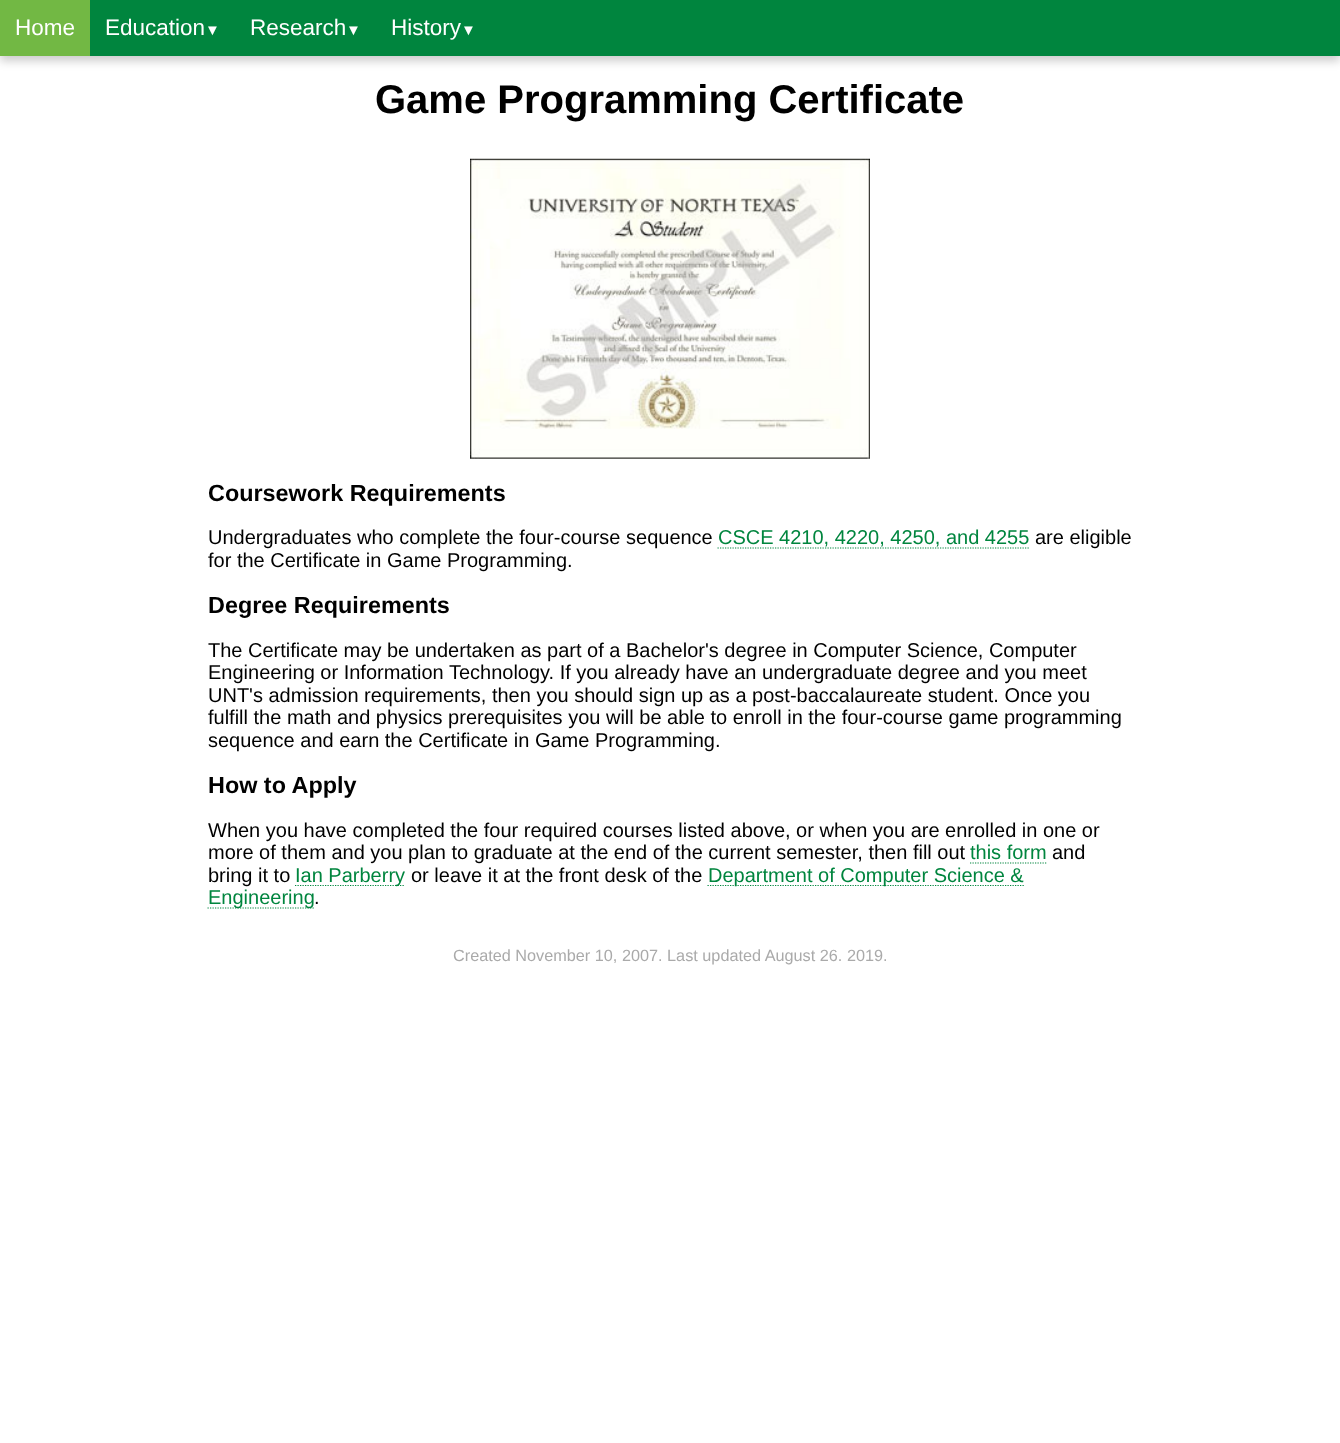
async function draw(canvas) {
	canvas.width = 1340;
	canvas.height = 1443;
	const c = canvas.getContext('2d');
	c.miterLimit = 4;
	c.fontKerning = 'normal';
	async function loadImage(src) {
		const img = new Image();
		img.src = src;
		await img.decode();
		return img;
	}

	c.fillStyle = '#fff';
	c.fillRect(0, 0, 1340, 1443);
	c.fillStyle = '#00000033';
	c.filter = 'blur(5px)';
	c.beginPath();
	c.rect(0, 5, 1340, 56);
	c.fill();
	c.filter = 'none';
	c.fillStyle = '#00853e';
	c.fillRect(90, 0, 1250, 56);
	c.fillStyle = '#72b844';
	c.fillRect(0, 0, 90, 56);
	c.font = '22.5px Liberation Sans';
	c.fillStyle = '#fff';
	c.fillText('Home', 15, 35);
	c.fillText('Education', 105, 35);
	c.font = '15px Liberation Sans';
	c.fillText('▼', 205, 35);
	c.font = '22.5px Liberation Sans';
	c.fillText('Research', 250, 35);
	c.font = '15px Liberation Sans';
	c.fillText('▼', 346, 35);
	c.font = '22.5px Liberation Sans';
	c.fillText('History', 391, 35);
	c.font = '15px Liberation Sans';
	c.fillText('▼', 461, 35);
	c.font = 'bold 40px Liberation Sans';
	c.fillStyle = '#000';
	c.fillText('Game Programming Certificate', 375, 113);
	c.drawImage(await loadImage('img1.png'), 470, 158, 400, 301);
	c.font = 'bold 23.4px Liberation Sans';
	c.fillText('Coursework Requirements', 208, 501);
	c.font = '20px Liberation Sans';
	c.fillText('Undergraduates who complete the four-course sequence', 208, 544);
	c.fillStyle = '#00853e';
	c.fillText('CSCE 4210, 4220, 4250, and 4255', 718, 544);
	c.beginPath();
	c.moveTo(717.5, 548);
	c.lineTo(1029, 548);
	c.strokeStyle = '#00853e';
	c.lineWidth = 1.2;
	c.setLineDash([1.25, 1.25]);
	c.stroke();
	c.fillStyle = '#000';
	c.fillText('are eligible', 1035, 544);
	c.fillText('for the Certificate in Game Programming.', 208, 567);
	c.font = 'bold 23.4px Liberation Sans';
	c.fillText('Degree Requirements', 208, 613);
	c.font = '20px Liberation Sans';
	for (const [text, x, y] of [
		['The Certificate may be undertaken as part of a Bachelor\'s degree in Computer Science, Computer', 208, 657],
		['Engineering or Information Technology. If you already have an undergraduate degree and you meet', 208, 679],
		['UNT\'s admission requirements, then you should sign up as a post-baccalaureate student. Once you', 208, 702],
		['fulfill the math and physics prerequisites you will be able to enroll in the four-course game programming', 208, 724],
		['sequence and earn the Certificate in Game Programming.', 208, 747],
	]) {
		c.fillText(text, x, y);
	}
	c.font = 'bold 23.4px Liberation Sans';
	c.fillText('How to Apply', 208, 793);
	c.font = '20px Liberation Sans';
	c.fillText('When you have completed the four required courses listed above, or when you are enrolled in one or', 208, 837);
	c.fillText('more of them and you plan to graduate at the end of the current semester, then fill out', 208, 859);
	c.fillStyle = '#00853e';
	c.fillText('this form', 970, 859);
	c.beginPath();
	c.moveTo(970, 863);
	c.lineTo(1047.5, 863);
	c.stroke();
	c.fillStyle = '#000';
	c.fillText('and', 1052, 859);
	c.fillText('bring it to', 208, 882);
	c.beginPath();
	c.moveTo(295, 885.5);
	c.lineTo(405, 885.5);
	c.stroke();
	c.fillStyle = '#00853e';
	c.fillText('Ian Parberry', 295, 882);
	c.fillStyle = '#000';
	c.fillText('or leave it at the front desk of the', 411, 882);
	c.beginPath();
	c.moveTo(707.5, 885.5);
	c.lineTo(1024, 885.5);
	c.stroke();
	c.fillStyle = '#00853e';
	c.fillText('Department of Computer Science &', 708, 882);
	c.beginPath();
	c.moveTo(207.5, 908);
	c.lineTo(314, 908);
	c.stroke();
	c.fillText('Engineering', 208, 904);
	c.fillStyle = '#000';
	c.fillText('.', 314, 904);
	c.font = '16.25px Liberation Sans';
	c.fillStyle = '#aaa';
	c.fillText('Created November 10, 2007. Last updated August 26. 2019.', 453, 961);
}

draw(document.querySelector('canvas'));
